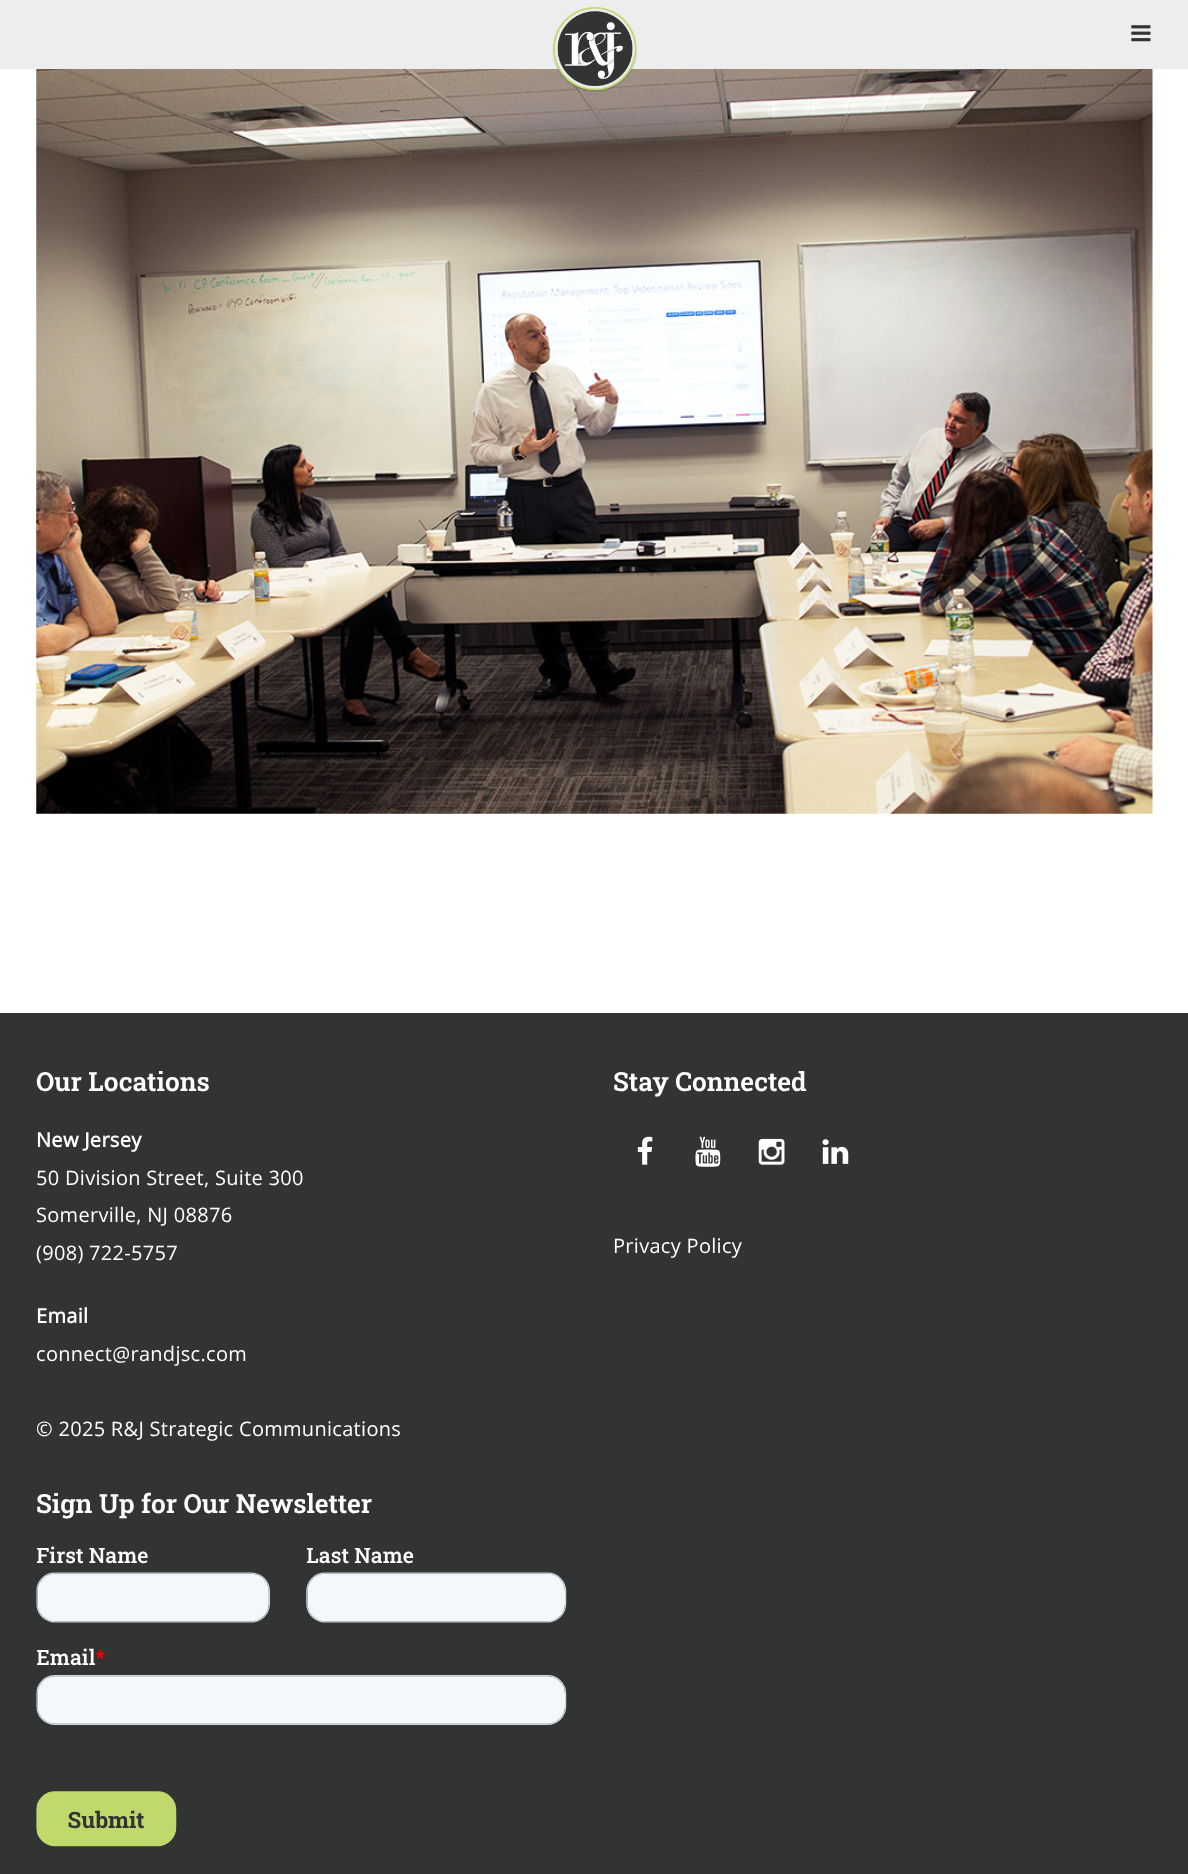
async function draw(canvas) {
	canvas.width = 1188;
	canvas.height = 1874;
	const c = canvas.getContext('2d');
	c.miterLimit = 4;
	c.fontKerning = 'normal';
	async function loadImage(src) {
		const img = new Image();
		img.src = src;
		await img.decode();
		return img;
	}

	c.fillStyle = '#fff';
	c.fillRect(0, 0, 1188, 1874);
	c.fillStyle = '#ededed';
	c.fillRect(0, 0, 1188, 69);
	c.drawImage(await loadImage('img3.png'), 36, 69, 1117, 745);
	c.drawImage(await loadImage('img1.png'), 552, 6, 85, 86);
	c.drawImage(await loadImage('img2.png'), 1131, 25, 20, 17);
	c.fillStyle = '#323333';
	c.fillRect(0, 1013, 1188, 861);
	c.font = '600 26.25px Roboto Slab';
	c.fillStyle = '#fff';
	c.fillText('Our Locations', 36, 1091);
	c.letterSpacing = '0.3px';
	c.font = 'bold 20px Open Sans';
	c.fillText('New Jersey', 36, 1147);
	c.font = '20px Open Sans';
	for (const [text, x, y] of [
		['50 Division Street, Suite 300', 36, 1185],
		['Somerville, NJ 08876', 36, 1222],
		['(908) 722-5757', 36, 1260],
	]) {
		c.fillText(text, x, y);
	}
	c.font = 'bold 20px Open Sans';
	c.fillText('Email', 36, 1323);
	c.font = '20px Open Sans';
	c.fillText('connect@randjsc.com', 36, 1361);
	c.fillText('© 2025 R&J Strategic Communications', 36, 1436);
	c.letterSpacing = '0px';
	c.font = '600 26.25px Roboto Slab';
	c.fillText('Stay Connected', 613, 1091);
	c.drawImage(await loadImage('img4.png'), 637, 1136, 16, 29);
	c.drawImage(await loadImage('img5.png'), 695, 1136, 26, 31);
	c.drawImage(await loadImage('img6.png'), 758, 1138, 27, 27);
	c.drawImage(await loadImage('img7.png'), 822, 1139, 27, 25);
	c.letterSpacing = '0.3px';
	c.font = '20px Open Sans';
	c.fillText('Privacy Policy', 613, 1253);
	c.letterSpacing = '0px';
	c.font = '600 26.25px Roboto Slab';
	c.fillText('Sign Up for Our Newsletter', 36, 1513);
	c.drawImage(await loadImage('img8.png'), 36, 1546, 531, 301);
}

draw(document.querySelector('canvas'));
